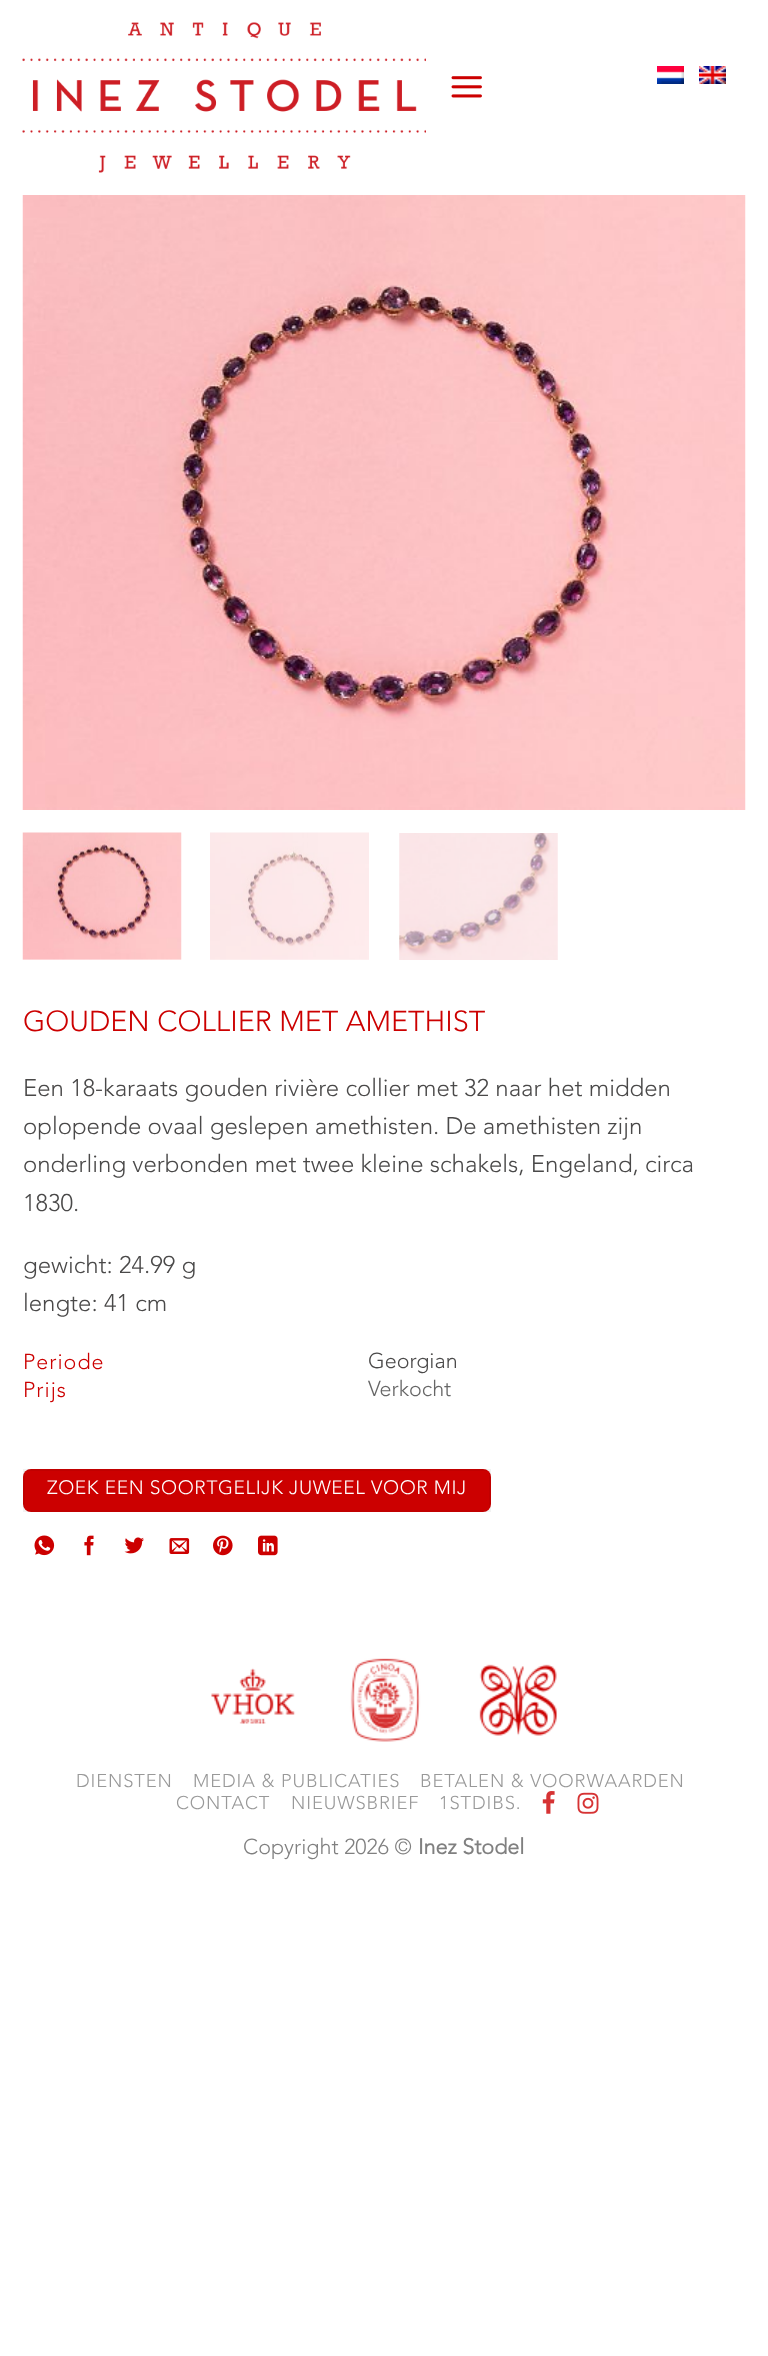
async function draw(canvas) {
	canvas.width = 768;
	canvas.height = 2356;
	const c = canvas.getContext('2d');
	c.miterLimit = 4;
	c.fontKerning = 'normal';
	async function loadImage(src) {
		const img = new Image();
		img.src = src;
		await img.decode();
		return img;
	}

	c.fillStyle = '#fff';
	c.fillRect(0, 0, 768, 2356);
	c.drawImage(await loadImage('img1.png'), 22, 22, 404, 151);
	c.drawImage(await loadImage('img2.png'), 451, 76, 31, 22);
	c.drawImage(await loadImage('img3.png'), 657, 66, 27, 18);
	c.drawImage(await loadImage('img4.png'), 699, 66, 27, 18);
	c.drawImage(await loadImage('img5.png'), 22, 195, 724, 615);
	c.drawImage(await loadImage('img6.png'), 22, 832, 160, 128);
	c.drawImage(await loadImage('img7.png'), 210, 832, 159, 128);
	c.drawImage(await loadImage('img8.png'), 399, 833, 159, 127);
	c.font = '300 28.75px Avenir';
	c.fillStyle = '#c00';
	c.fillText('GOUDEN COLLIER MET AMETHIST', 23, 1031);
	c.font = '300 24px Avenir';
	c.fillStyle = '#4a4949';
	for (const [text, x, y] of [
		['Een 18-karaats gouden rivière collier met 32 naar het midden', 23, 1096],
		['oplopende ovaal geslepen amethisten. De amethisten zijn', 23, 1134],
		['onderling verbonden met twee kleine schakels, Engeland, circa', 23, 1172],
		['1830.', 23, 1211],
		['gewicht: 24.99 g', 23, 1273],
		['lengte: 41 cm', 23, 1311],
	]) {
		c.fillText(text, x, y);
	}
	c.letterSpacing = '1px';
	c.font = '300 21.5px Avenir';
	c.fillStyle = '#c00';
	c.fillText('Periode', 23, 1369);
	c.letterSpacing = '0px';
	c.fillStyle = '#4a4949';
	c.fillText('Georgian', 368, 1368);
	c.letterSpacing = '1px';
	c.fillStyle = '#c00';
	c.fillText('Prijs', 23, 1397);
	c.letterSpacing = '0px';
	c.fillStyle = '#666';
	c.fillText('Verkocht', 368, 1396);
	c.fillStyle = '#c00';
	c.beginPath();
	c.roundRect(23, 1469, 468, 43, 8);
	c.fill();
	c.strokeStyle = '#0000000d';
	c.lineWidth = 2;
	c.strokeRect(24, 1470, 466, 41);
	c.letterSpacing = '0.6px';
	c.font = '300 19.2px Avenir';
	c.fillStyle = '#fff';
	c.fillText('ZOEK EEN SOORTGELIJK JUWEEL VOOR MIJ', 47, 1494);
	c.drawImage(await loadImage('img9.png'), 34, 1535, 21, 21);
	c.drawImage(await loadImage('img10.png'), 84, 1535, 10, 21);
	c.drawImage(await loadImage('img11.png'), 124, 1537, 20, 17);
	c.drawImage(await loadImage('img12.png'), 169, 1538, 21, 16);
	c.drawImage(await loadImage('img13.png'), 213, 1535, 20, 21);
	c.drawImage(await loadImage('img14.png'), 258, 1535, 20, 21);
	c.drawImage(await loadImage('img15.png'), 211, 1658, 346, 84);
	c.letterSpacing = '0.9px';
	c.font = '300 18.4px Avenir';
	c.fillStyle = '#999';
	for (const [text, x, y] of [
		['DIENSTEN', 76, 1787],
		['MEDIA & PUBLICATIES', 193, 1787],
		['BETALEN & VOORWAARDEN', 420, 1787],
		['CONTACT', 176, 1809],
		['NIEUWSBRIEF', 291, 1809],
		['1STDIBS.', 439, 1809],
	]) {
		c.fillText(text, x, y);
	}
	c.drawImage(await loadImage('img16.png'), 542, 1791, 13, 23);
	c.drawImage(await loadImage('img17.png'), 577, 1792, 22, 22);
	c.letterSpacing = '0px';
	c.font = '300 21.5px Avenir';
	c.fillStyle = '#808080';
	c.fillText('Copyright 2026 ©', 243, 1854);
	c.font = 'bold 21.5px Avenir';
	c.fillText('Inez Stodel', 418, 1854);
}

draw(document.querySelector('canvas'));
